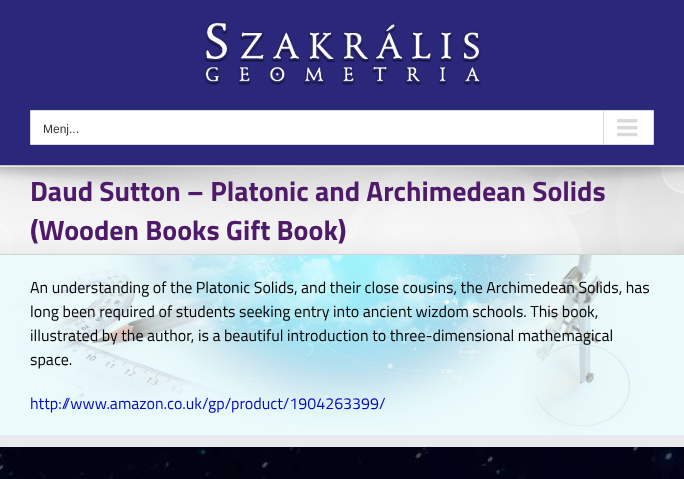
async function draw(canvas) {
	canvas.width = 684;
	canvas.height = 479;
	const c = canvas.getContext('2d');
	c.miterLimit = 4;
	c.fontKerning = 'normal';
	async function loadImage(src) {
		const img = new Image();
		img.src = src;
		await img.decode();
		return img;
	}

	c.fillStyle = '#f6f6f6';
	c.fillRect(0, 0, 684, 479);
	c.drawImage(await loadImage('img3.png'), 0, 167, 684, 87);
	c.fillStyle = '#d2d3d4';
	c.fillRect(0, 165, 684, 1);
	c.fillStyle = '#00000024';
	c.filter = 'blur(25px)';
	c.beginPath();
	c.rect(2, 12, 680, 161);
	c.fill();
	c.filter = 'none';
	c.fillStyle = '#2b277a';
	c.fillRect(0, 0, 684, 165);
	c.drawImage(await loadImage('img1.png'), 204, 21, 277, 64);
	c.fillStyle = '#fff';
	c.beginPath();
	c.rect(30.5, 110.5, 623, 34);
	c.fill();
	c.strokeStyle = '#dadada';
	c.stroke();
	c.font = '12px Liberation Sans';
	c.fillStyle = '#333';
	c.fillText('Menj...', 43, 133);
	c.fillStyle = '#dadada';
	c.fillRect(603, 111, 1, 33);
	c.drawImage(await loadImage('img2.png'), 617, 119, 21, 18);
	c.fillStyle = '#d2d3d4';
	c.fillRect(0, 254, 684, 1);
	c.font = 'bold 28px Titillium Web';
	c.fillStyle = '#501a6a';
	c.fillText('Daud Sutton – Platonic and Archimedean Solids', 30, 201);
	c.fillText('(Wooden Books Gift Book)', 30, 240);
	c.drawImage(await loadImage('img4.png'), 0, 255, 684, 180);
	c.font = '16px Titillium Web';
	c.fillStyle = '#000';
	for (const [text, x, y] of [
		['An understanding of the Platonic Solids, and their close cousins, the Archimedean Solids, has', 30, 293],
		['long been required of students seeking entry into ancient wizdom schools. This book,', 30, 317],
		['illustrated by the author, is a beautiful introduction to three-dimensional mathemagical', 30, 341],
		['space.', 30, 365],
	]) {
		c.fillText(text, x, y);
	}
	c.fillStyle = '#000cc1';
	c.fillText('http://www.amazon.co.uk/gp/product/1904263399/', 30, 409);
	c.drawImage(await loadImage('img5.png'), 0, 447, 684, 32);
	c.fillStyle = '#e9eaee';
	c.fillRect(0, 435, 684, 12);
}

draw(document.querySelector('canvas'));
